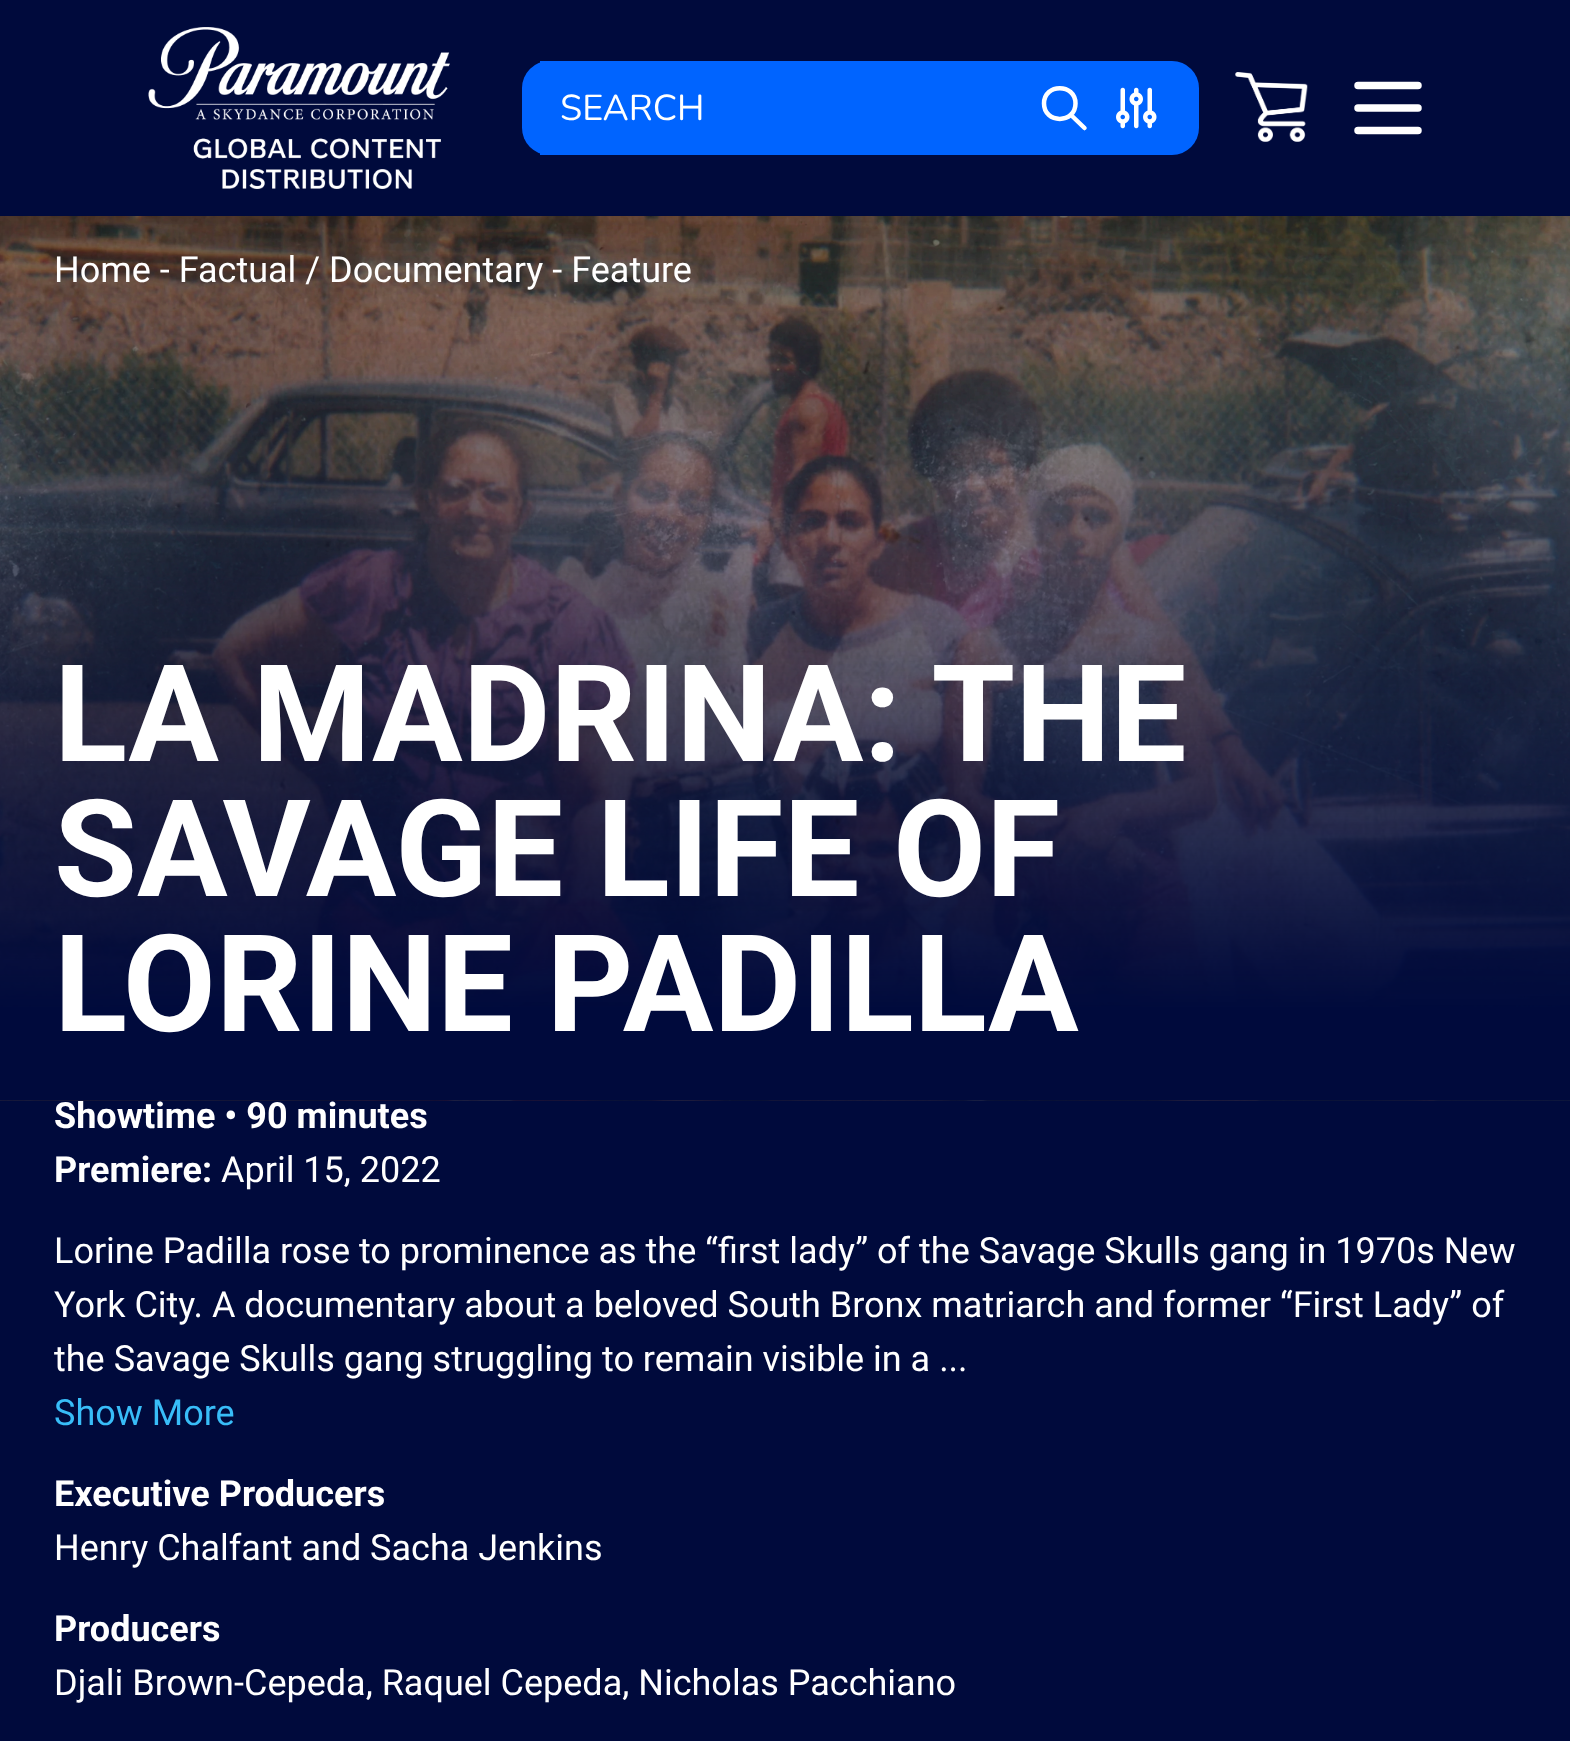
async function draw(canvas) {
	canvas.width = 1570;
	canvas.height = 1741;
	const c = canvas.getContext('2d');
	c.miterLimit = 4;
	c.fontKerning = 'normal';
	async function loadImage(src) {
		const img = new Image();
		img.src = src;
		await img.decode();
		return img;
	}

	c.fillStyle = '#000a3c';
	c.fillRect(0, 0, 1570, 1741);
	c.drawImage(await loadImage('img1.png'), 148, 27, 302, 162);
	c.fillStyle = '#0064ff';
	c.beginPath();
	c.roundRect(522, 61, 677, 94, 27);
	c.fill();
	c.fillRect(540, 61, 9, 94);
	c.font = '200 36px Nunito';
	c.fillStyle = '#fff';
	c.fillText('SEARCH', 560, 120);
	c.beginPath();
	c.moveTo(1084.5, 128);
	c.lineTo(1071, 115);
	c.moveTo(1075.5, 103.5);
	c.bezierCurveTo(1075.5, 124, 1044, 124, 1044, 103.5);
	c.bezierCurveTo(1044, 83, 1075.5, 83, 1075.5, 103.5);
	c.closePath();
	c.strokeStyle = '#fff';
	c.lineWidth = 4.5;
	c.lineCap = 'round';
	c.lineJoin = 'round';
	c.stroke();
	c.drawImage(await loadImage('img2.png'), 1116, 87, 41, 42);
	c.drawImage(await loadImage('img3.png'), 1235, 72, 73, 70);
	c.beginPath();
	c.moveTo(1358, 85.5);
	c.lineTo(1418, 85.5);
	c.moveTo(1358, 108);
	c.lineTo(1418, 108);
	c.moveTo(1358, 130.5);
	c.lineTo(1418, 130.5);
	c.lineWidth = 7.5;
	c.stroke();
	c.drawImage(await loadImage('img4.png'), 0, 216, 1570, 885);
	c.font = '36px Roboto';
	c.fillText('Home - Factual / Documentary - Feature', 54, 282);
	c.font = 'bold 135px Roboto';
	for (const [text, x, y] of [
		['LA MADRINA: THE', 54, 761],
		['SAVAGE LIFE OF', 54, 896],
		['LORINE PADILLA', 54, 1031],
	]) {
		c.fillText(text, x, y);
	}
	c.font = 'bold 36px Roboto';
	c.fillText('Showtime • 90 minutes', 54, 1128);
	c.fillText('Premiere:', 54, 1182);
	c.font = '36px Roboto';
	for (const [text, x, y] of [
		['April 15, 2022', 221, 1182],
		['Lorine Padilla rose to prominence as the “first lady” of the Savage Skulls gang in 1970s New', 54, 1263],
		['York City. A documentary about a beloved South Bronx matriarch and former “First Lady” of', 54, 1317],
		['the Savage Skulls gang struggling to remain visible in a ...', 54, 1371],
	]) {
		c.fillText(text, x, y);
	}
	c.fillStyle = '#38bdf8';
	c.fillText('Show More', 54, 1425);
	c.font = 'bold 36px Roboto';
	c.fillStyle = '#fff';
	c.fillText('Executive Producers', 54, 1506);
	c.font = '36px Roboto';
	c.fillText('Henry Chalfant and Sacha Jenkins', 54, 1560);
	c.font = 'bold 36px Roboto';
	c.fillText('Producers', 54, 1641);
	c.font = '36px Roboto';
	c.fillText('Djali Brown-Cepeda, Raquel Cepeda, Nicholas Pacchiano', 54, 1695);
}

draw(document.querySelector('canvas'));
